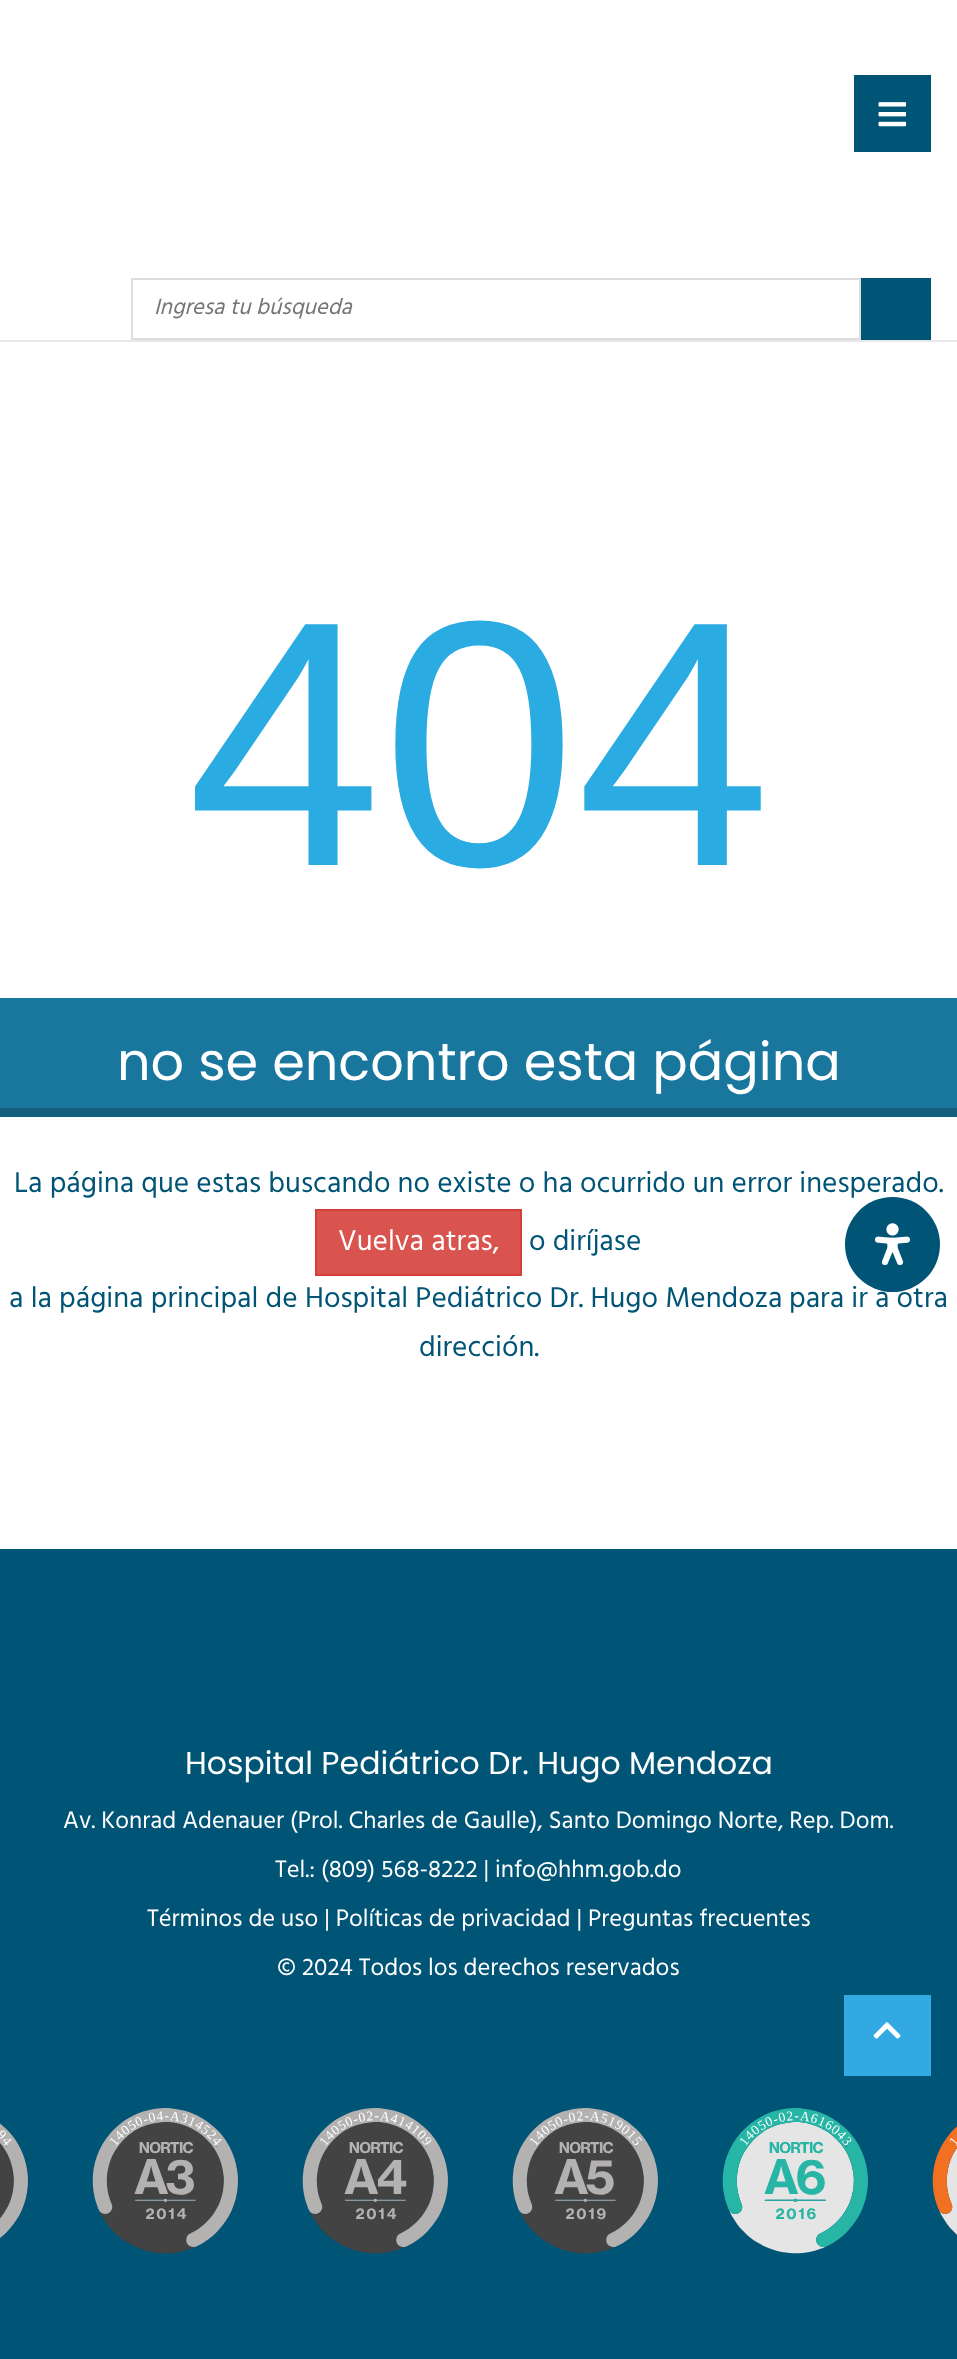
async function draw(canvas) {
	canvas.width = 957;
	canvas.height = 2359;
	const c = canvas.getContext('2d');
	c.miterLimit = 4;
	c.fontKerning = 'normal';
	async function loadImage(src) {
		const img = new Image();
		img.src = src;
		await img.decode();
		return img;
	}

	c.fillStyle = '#fff';
	c.fillRect(0, 0, 957, 2359);
	c.fillStyle = '#e8e8e8';
	c.fillRect(0, 340, 957, 2);
	c.fillStyle = '#005476';
	c.fillRect(854, 75, 77, 77);
	c.drawImage(await loadImage('img1.png'), 878, 102, 29, 25);
	c.strokeStyle = '#ddd';
	c.lineWidth = 2;
	c.strokeRect(132, 279, 728, 60);
	c.font = 'italic 22.75px Hind';
	c.fillStyle = '#757575';
	c.fillText('Ingresa tu búsqueda', 154, 314);
	c.fillStyle = '#005476';
	c.fillRect(861, 278, 70, 62);
	c.font = '350px Liberation Sans';
	c.fillStyle = '#2aabe1';
	c.fillText('404', 187, 865);
	c.fillStyle = '#19779e';
	c.fillRect(0, 998, 957, 110);
	c.fillStyle = '#145d7c';
	c.fillRect(0, 1108, 957, 9);
	c.font = '52.5px Poppins';
	c.fillStyle = '#fff';
	c.fillText('no se encontro esta página', 117, 1080);
	c.font = '29.4px Hind';
	c.fillStyle = '#005476';
	c.fillText('La página que estas buscando no existe o ha ocurrido un error inesperado.', 14, 1192);
	c.fillStyle = '#d9534f';
	c.beginPath();
	c.rect(316, 1210, 205, 65);
	c.fill();
	c.strokeStyle = '#d43f3a';
	c.stroke();
	c.fillStyle = '#fff';
	c.fillText('Vuelva atras,', 338, 1250);
	c.fillStyle = '#005476';
	for (const [text, x, y] of [
		['o diríjase', 529, 1250],
		['a la página principal de', 9, 1307],
		['Hospital Pediátrico Dr. Hugo Mendoza', 305, 1307],
		['para ir a otra', 789, 1307],
		['dirección.', 419, 1356],
	]) {
		c.fillText(text, x, y);
	}
	c.fillRect(0, 1549, 957, 810);
	c.font = '31.5px Poppins';
	c.fillStyle = '#fff';
	c.fillText('Hospital Pediátrico Dr. Hugo Mendoza', 185, 1774);
	c.font = '24.5px Hind';
	for (const [text, x, y] of [
		['Av. Konrad Adenauer (Prol. Charles de Gaulle), Santo Domingo Norte, Rep. Dom.', 63, 1828],
		['Tel.: (809) 568-8222 | info@hhm.gob.do', 275, 1877],
		['Términos de uso | Políticas de privacidad | Preguntas frecuentes', 147, 1926],
		['© 2024 Todos los derechos reservados', 277, 1975],
	]) {
		c.fillText(text, x, y);
	}
	c.fillStyle = '#33a9e3';
	c.fillRect(844, 1995, 87, 81);
	c.drawImage(await loadImage('img2.png'), 873, 2022, 28, 17);
	c.drawImage(await loadImage('img3.png'), 0, 2123, 28, 115);
	c.drawImage(await loadImage('img4.png'), 92, 2108, 146, 146);
	c.drawImage(await loadImage('img5.png'), 302, 2108, 146, 146);
	c.drawImage(await loadImage('img6.png'), 512, 2108, 146, 146);
	c.drawImage(await loadImage('img7.png'), 722, 2108, 146, 146);
	c.drawImage(await loadImage('img8.png'), 932, 2126, 25, 109);
	c.fillStyle = '#005476';
	c.beginPath();
	c.arc(892.5, 1244.5, 47.5, 0, 2 * Math.PI);
	c.fill();
	c.drawImage(await loadImage('img9.png'), 874, 1223, 37, 42);
}

draw(document.querySelector('canvas'));
